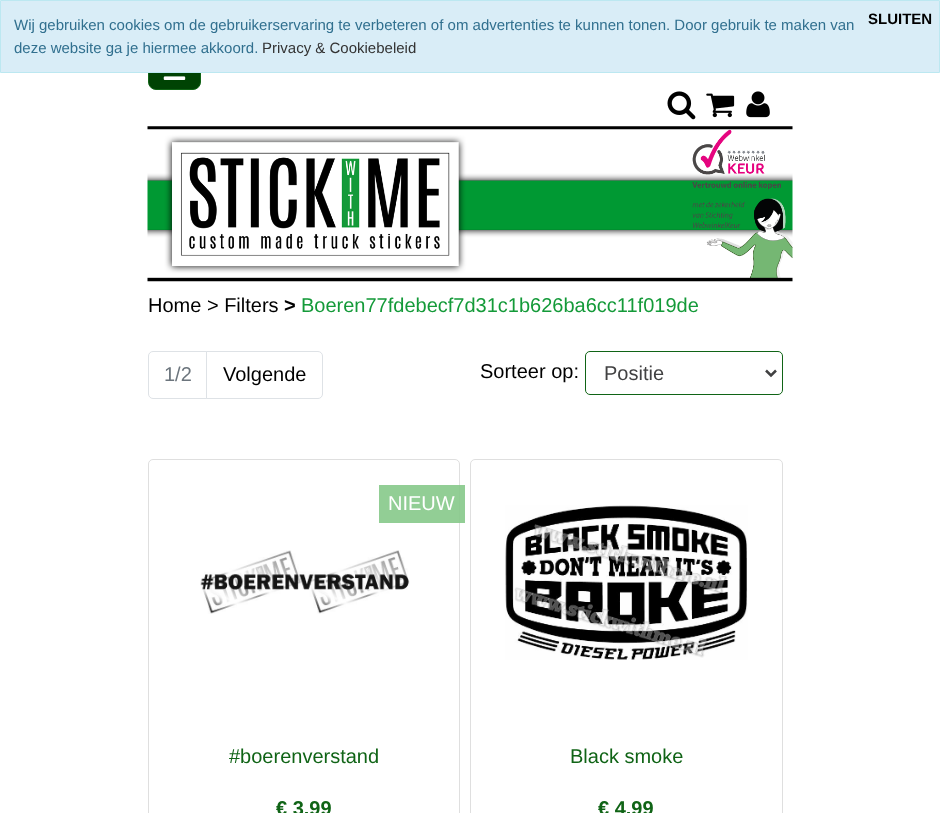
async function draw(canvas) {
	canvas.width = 940;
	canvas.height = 813;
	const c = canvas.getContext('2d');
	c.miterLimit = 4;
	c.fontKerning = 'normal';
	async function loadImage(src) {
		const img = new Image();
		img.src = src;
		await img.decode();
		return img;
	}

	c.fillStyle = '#fff';
	c.fillRect(0, 0, 940, 813);
	c.fillStyle = '#004304';
	c.beginPath();
	c.roundRect(148.5, 53.5, 52, 36, 7.5);
	c.fill();
	c.strokeStyle = '#116416';
	c.stroke();
	c.fillStyle = '#d9edf7';
	c.beginPath();
	c.rect(0.5, 0.5, 939, 72);
	c.fill();
	c.strokeStyle = '#bce8f1';
	c.stroke();
	c.font = '15px Liberation Sans';
	c.fillStyle = '#31708f';
	c.fillText('Wij gebruiken cookies om de gebruikerservaring te verbeteren of om advertenties te kunnen tonen. Door gebruik te maken van', 14, 30);
	c.fillText('deze website ga je hiermee akkoord.', 14, 53);
	c.fillStyle = '#333';
	c.fillText('Privacy & Cookiebeleid', 262, 53);
	c.font = 'bold 15px Liberation Sans';
	c.fillStyle = '#000';
	c.fillText('SLUITEN', 868, 24);
	c.drawImage(await loadImage('img1.png'), 163, 76, 23, 4);
	c.drawImage(await loadImage('img2.png'), 667, 91, 29, 29);
	c.drawImage(await loadImage('img3.png'), 706, 93, 29, 25);
	c.drawImage(await loadImage('img4.png'), 746, 91, 24, 27);
	c.drawImage(await loadImage('img5.png'), 147, 126, 646, 156);
	c.font = '20px Liberation Sans';
	c.fillText('Home > Filters', 148, 312);
	c.font = 'bold 20px Liberation Sans';
	c.fillText('>', 284, 312);
	c.font = '20px Liberation Sans';
	c.fillStyle = '#149a39';
	c.fillText('Boeren77fdebecf7d31c1b626ba6cc11f019de', 301, 312);
	c.beginPath();
	c.roundRect(148.5, 351.5, 59, 47, [4.5, 0, 0, 4.5]);
	c.strokeStyle = '#dee2e6';
	c.stroke();
	c.fillStyle = '#6c757d';
	c.fillText('1/2', 164, 381);
	c.fillStyle = '#fff';
	c.beginPath();
	c.roundRect(206.5, 351.5, 116, 47, [0, 4.5, 4.5, 0]);
	c.fill();
	c.stroke();
	c.fillStyle = '#000';
	c.fillText('Volgende', 223, 381);
	c.fillText('Sorteer op:', 480, 378);
	c.beginPath();
	c.roundRect(585.5, 351.5, 197, 43, 4.5);
	c.strokeStyle = '#106416';
	c.stroke();
	c.beginPath();
	c.moveTo(766, 370.5);
	c.lineTo(771, 375.5);
	c.lineTo(776, 370.5);
	c.strokeStyle = '#414142';
	c.lineWidth = 2.5;
	c.stroke();
	c.fillStyle = '#414142';
	c.fillText('Positie', 604, 380);
	c.beginPath();
	c.roundRect(148.5, 459.5, 311, 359, 4.5);
	c.strokeStyle = '#dfdfdf';
	c.lineWidth = 1;
	c.stroke();
	c.fillStyle = '#86c98ae6';
	c.fillRect(379, 485, 86, 38);
	c.fillStyle = '#fff';
	c.fillText('NIEUW', 388, 510);
	c.drawImage(await loadImage('img6.png'), 200, 550, 210, 64);
	c.fillStyle = '#106416';
	c.fillText('#boerenverstand', 229, 763);
	c.font = 'bold 20px Liberation Sans';
	c.fillText('€ 3.99', 276, 815);
	c.beginPath();
	c.roundRect(470.5, 459.5, 312, 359, 4.5);
	c.stroke();
	c.drawImage(await loadImage('img7.png'), 505, 505, 243, 155);
	c.font = '20px Liberation Sans';
	c.fillText('Black smoke', 570, 763);
	c.font = 'bold 20px Liberation Sans';
	c.fillText('€ 4.99', 598, 815);
}

draw(document.querySelector('canvas'));
